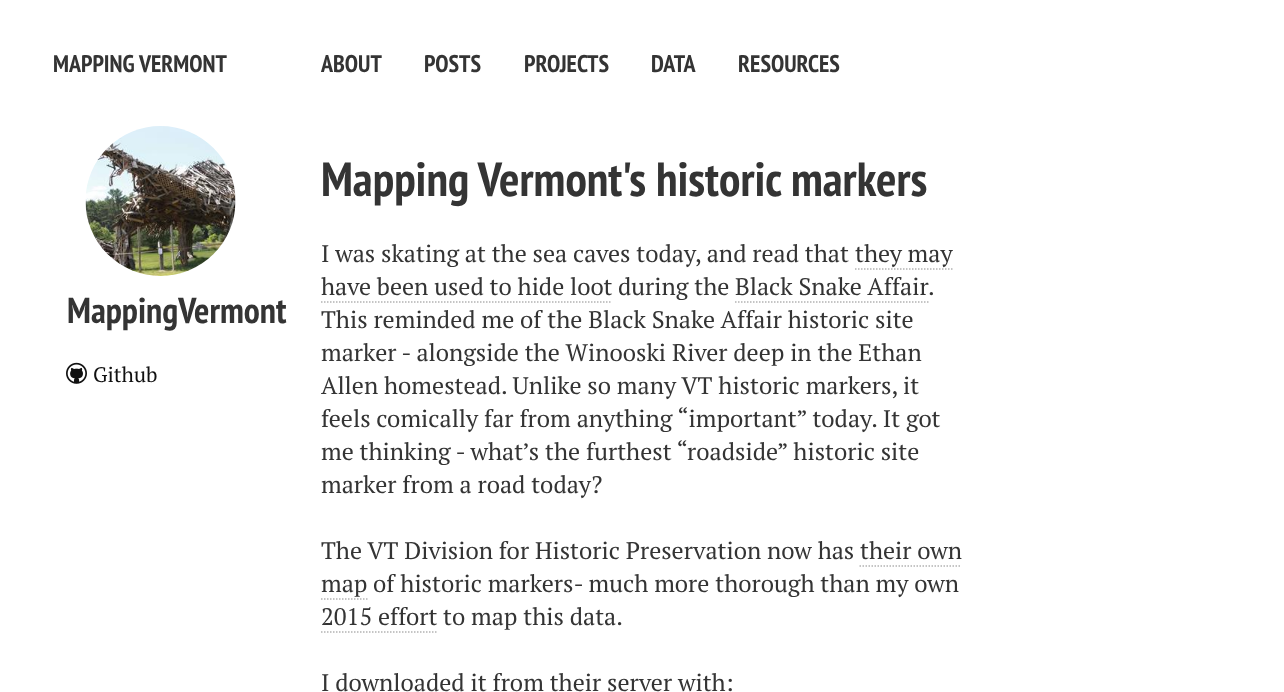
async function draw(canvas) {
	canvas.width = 1284;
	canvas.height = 692;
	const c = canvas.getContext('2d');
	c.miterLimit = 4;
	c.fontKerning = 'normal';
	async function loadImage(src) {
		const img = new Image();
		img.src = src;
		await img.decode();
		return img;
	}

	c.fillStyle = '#fff';
	c.fillRect(0, 0, 1284, 692);
	c.font = 'bold 24px PT Sans Narrow';
	c.fillStyle = '#343434';
	for (const [text, x, y] of [
		['MAPPING VERMONT', 53, 72],
		['ABOUT', 321, 72],
		['POSTS', 424, 72],
		['PROJECTS', 524, 72],
		['DATA', 651, 72],
		['RESOURCES', 738, 72],
	]) {
		c.fillText(text, x, y);
	}
	c.drawImage(await loadImage('img1.png'), 85, 126, 151, 150);
	c.font = 'bold 36px PT Sans Narrow';
	c.fillText('MappingVermont', 67, 323);
	c.drawImage(await loadImage('img2.png'), 66, 362, 21, 22);
	c.font = '21px PT Serif';
	c.fillStyle = '#111';
	c.fillText('Github', 93, 382);
	c.font = 'bold 48px PT Sans Narrow';
	c.fillStyle = '#343434';
	c.fillText('Mapping Vermont\'s historic markers', 321, 196);
	c.font = '24px PT Serif';
	c.fillText('I was skating at the sea caves today, and read that', 321, 262);
	c.fillText('they may', 855, 262);
	c.beginPath();
	c.moveTo(855, 269);
	c.lineTo(952.5, 269);
	c.strokeStyle = '#b3b3b3';
	c.lineWidth = 1.5;
	c.setLineDash([1.5, 1.5]);
	c.stroke();
	c.fillText('have been used to hide loot', 321, 295);
	c.beginPath();
	c.moveTo(321, 302);
	c.lineTo(612, 302);
	c.stroke();
	c.fillText('during the', 618, 295);
	c.fillText('Black Snake Affair', 735, 295);
	c.beginPath();
	c.moveTo(735, 302);
	c.lineTo(928.5, 302);
	c.stroke();
	for (const [text, x, y] of [
		['.', 928, 295],
		['This reminded me of the Black Snake Affair historic site', 321, 328],
		['marker - alongside the Winooski River deep in the Ethan', 321, 361],
		['Allen homestead. Unlike so many VT historic markers, it', 321, 394],
		['feels comically far from anything “important” today. It got', 321, 427],
		['me thinking - what’s the furthest “roadside” historic site', 321, 460],
		['marker from a road today?', 321, 493],
		['The VT Division for Historic Preservation now has', 321, 559],
		['their own', 860, 559],
	]) {
		c.fillText(text, x, y);
	}
	c.beginPath();
	c.moveTo(859.5, 566);
	c.lineTo(961.5, 566);
	c.stroke();
	c.fillText('map', 321, 592);
	c.beginPath();
	c.moveTo(321, 599);
	c.lineTo(367.5, 599);
	c.stroke();
	c.fillText('of historic markers- much more thorough than my own', 373, 592);
	c.fillText('2015 effort', 321, 625);
	c.beginPath();
	c.moveTo(321, 632);
	c.lineTo(438, 632);
	c.stroke();
	c.fillText('to map this data.', 443, 625);
	c.fillText('I downloaded it from their server with:', 321, 691);
}

draw(document.querySelector('canvas'));
